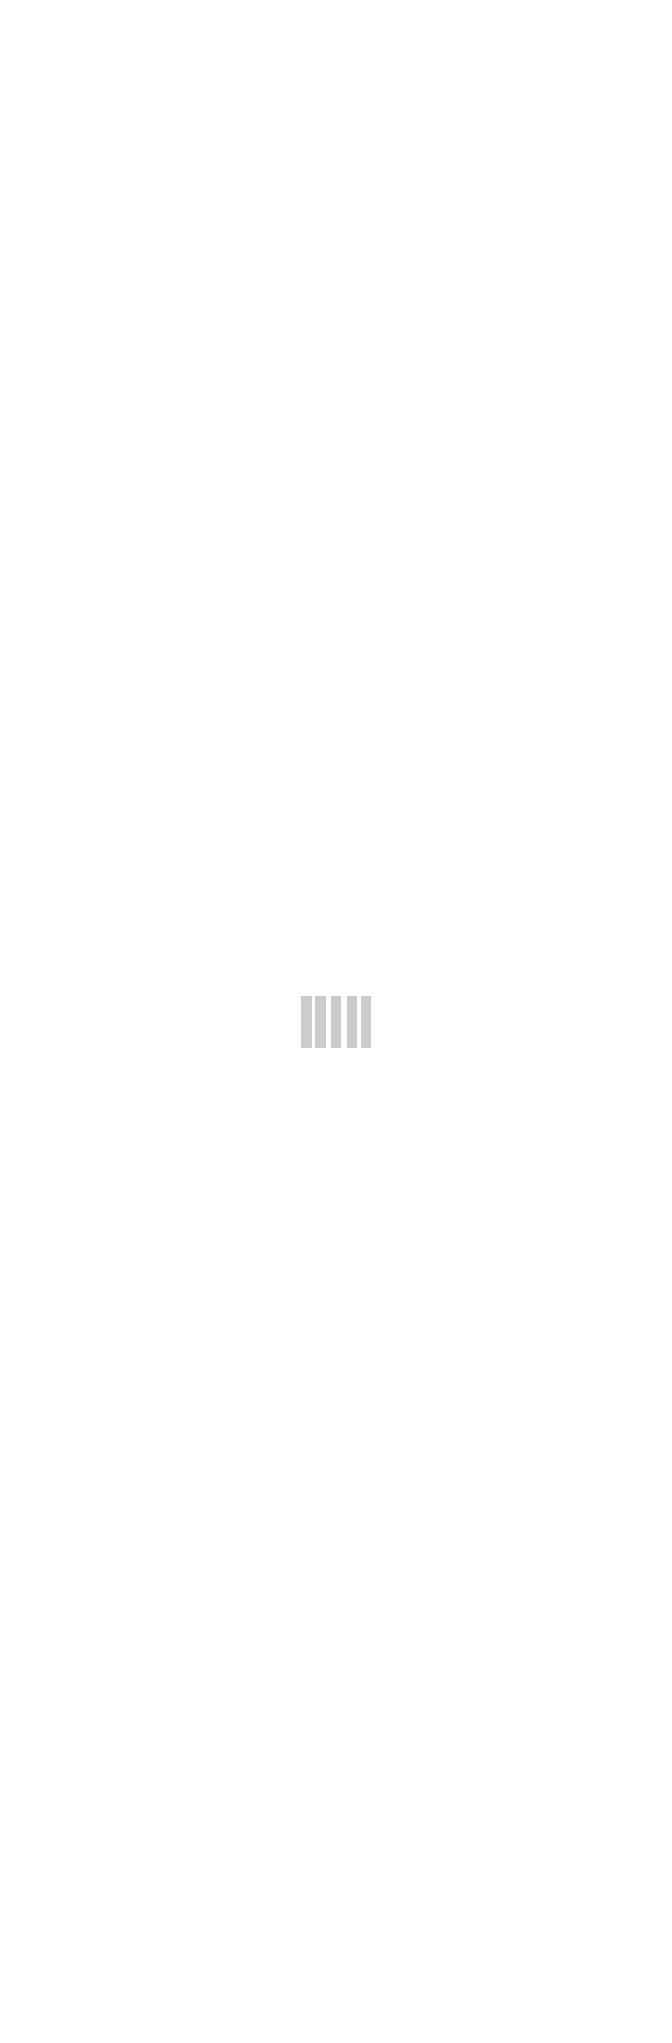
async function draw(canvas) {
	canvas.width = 672;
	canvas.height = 2043;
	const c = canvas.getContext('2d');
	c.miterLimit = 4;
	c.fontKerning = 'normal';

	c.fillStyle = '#fff';
	c.fillRect(0, 0, 672, 2043);
	for (const [x, y, w, h, color] of [
		[301, 996, 11, 52, '#ccc'],
		[315, 996, 11, 52, '#ccc'],
		[331, 996, 10, 52, '#ccc'],
		[347, 996, 10, 52, '#ccc'],
		[361, 996, 10, 52, '#ccc'],
	]) {
		c.fillStyle = color;
		c.fillRect(x, y, w, h);
	}
}

draw(document.querySelector('canvas'));
